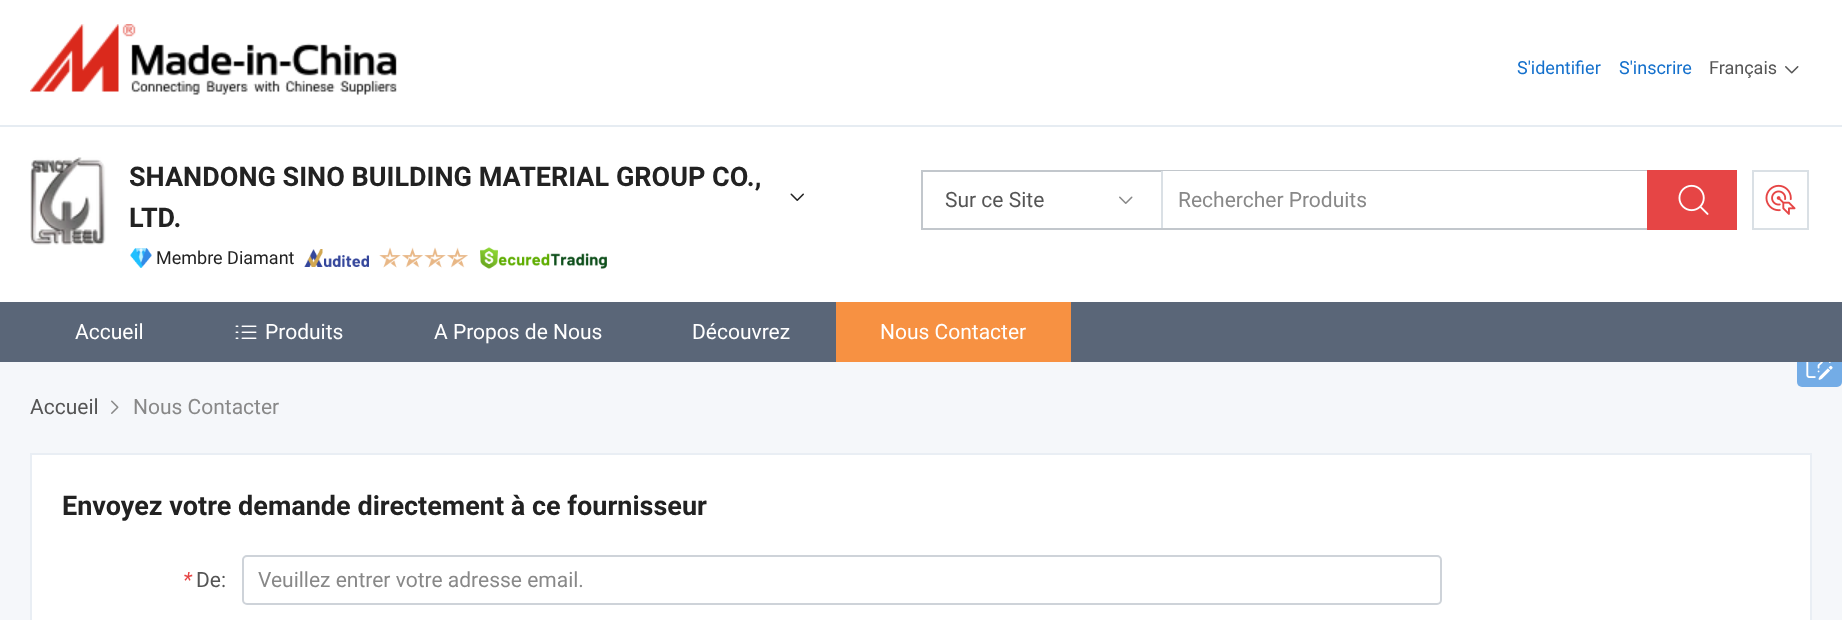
async function draw(canvas) {
	canvas.width = 1842;
	canvas.height = 620;
	const c = canvas.getContext('2d');
	c.miterLimit = 4;
	c.fontKerning = 'normal';
	async function loadImage(src) {
		const img = new Image();
		img.src = src;
		await img.decode();
		return img;
	}

	c.fillStyle = '#fff';
	c.fillRect(0, 0, 1842, 620);
	c.fillStyle = '#e6ecf2';
	c.fillRect(0, 125, 1842, 2);
	c.drawImage(await loadImage('img1.png'), 30, 157, 76, 88);
	c.font = 'bold 27px Roboto';
	c.fillStyle = '#222';
	c.fillText('SHANDONG SINO BUILDING MATERIAL GROUP CO.,', 129, 186);
	c.fillText('LTD.', 129, 227);
	c.drawImage(await loadImage('img2.png'), 790, 193, 14, 8);
	c.drawImage(await loadImage('img3.png'), 130, 248, 22, 20);
	c.font = '18px Roboto';
	c.fillText('Membre Diamant', 156, 264);
	c.drawImage(await loadImage('img4.png'), 304, 249, 65, 18);
	c.drawImage(await loadImage('img5.png'), 379, 247, 22, 21);
	c.drawImage(await loadImage('img6.png'), 402, 247, 21, 21);
	c.drawImage(await loadImage('img5.png'), 424, 247, 22, 21);
	c.drawImage(await loadImage('img7.png'), 447, 247, 21, 21);
	c.drawImage(await loadImage('img8.png'), 480, 247, 127, 22);
	c.drawImage(await loadImage('img9.png'), 30, 24, 367, 71);
	c.fillStyle = '#1470cc';
	c.fillText('S\'identifier', 1517, 74);
	c.fillText('S\'inscrire', 1619, 74);
	c.fillStyle = '#555';
	c.fillText('Français', 1709, 74);
	c.drawImage(await loadImage('img10.png'), 1785, 66, 14, 8);
	c.strokeStyle = '#c2c7cc';
	c.lineWidth = 2;
	c.strokeRect(922, 171, 814, 58);
	c.fillStyle = '#dae0e5';
	c.fillRect(1161, 171, 2, 57);
	c.font = '21px Roboto';
	c.fillStyle = '#555';
	c.fillText('Sur ce Site', 945, 207);
	c.drawImage(await loadImage('img11.png'), 1119, 196, 14, 8);
	c.fillStyle = '#fff';
	c.fillRect(1163, 171, 484, 1);
	c.fillStyle = '#888';
	c.fillText('Rechercher Produits', 1178, 207);
	c.fillStyle = '#e64545';
	c.fillRect(1647, 170, 90, 60);
	c.drawImage(await loadImage('img12.png'), 1678, 184, 31, 31);
	c.strokeStyle = '#dae0e5';
	c.strokeRect(1753, 171, 55, 58);
	c.drawImage(await loadImage('img13.png'), 1765, 184, 31, 31);
	c.fillStyle = '#f5f7fa';
	c.fillRect(0, 362, 1842, 258);
	c.fillStyle = '#73ace6';
	c.beginPath();
	c.roundRect(1797, 342, 45, 45, 5);
	c.fill();
	c.fillStyle = '#5a6678';
	c.fillRect(0, 302, 1842, 60);
	c.fillStyle = '#fff';
	c.fillText('Accueil', 75, 339);
	c.drawImage(await loadImage('img14.png'), 235, 325, 22, 14);
	for (const [text, x, y] of [
		['Produits', 265, 339],
		['A Propos de Nous', 434, 339],
		['Découvrez', 692, 339],
	]) {
		c.fillText(text, x, y);
	}
	c.fillStyle = '#f79142';
	c.fillRect(836, 302, 235, 60);
	c.fillStyle = '#fff';
	c.fillText('Nous Contacter', 880, 339);
	c.drawImage(await loadImage('img15.png'), 1806, 362, 27, 18);
	c.fillStyle = '#555';
	c.fillText('Accueil', 30, 414);
	c.drawImage(await loadImage('img16.png'), 111, 400, 8, 14);
	c.fillStyle = '#888';
	c.fillText('Nous Contacter', 133, 414);
	c.fillStyle = '#fff';
	c.beginPath();
	c.rect(31, 454, 1780, 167);
	c.fill();
	c.strokeStyle = '#e9eef4';
	c.stroke();
	c.font = 'bold 27px Roboto';
	c.fillStyle = '#222';
	c.fillText('Envoyez votre demande directement à ce fournisseur', 62, 515);
	c.font = 'italic 21px Roboto';
	c.fillStyle = '#e64545';
	c.fillText('*', 183, 587);
	c.font = '21px Roboto';
	c.fillStyle = '#555';
	c.fillText('De:', 196, 587);
	c.beginPath();
	c.roundRect(243, 556, 1198, 48, 4);
	c.strokeStyle = '#ced3d9';
	c.stroke();
	c.fillStyle = '#888';
	c.fillText('Veuillez entrer votre adresse email.', 258, 587);
}

draw(document.querySelector('canvas'));
